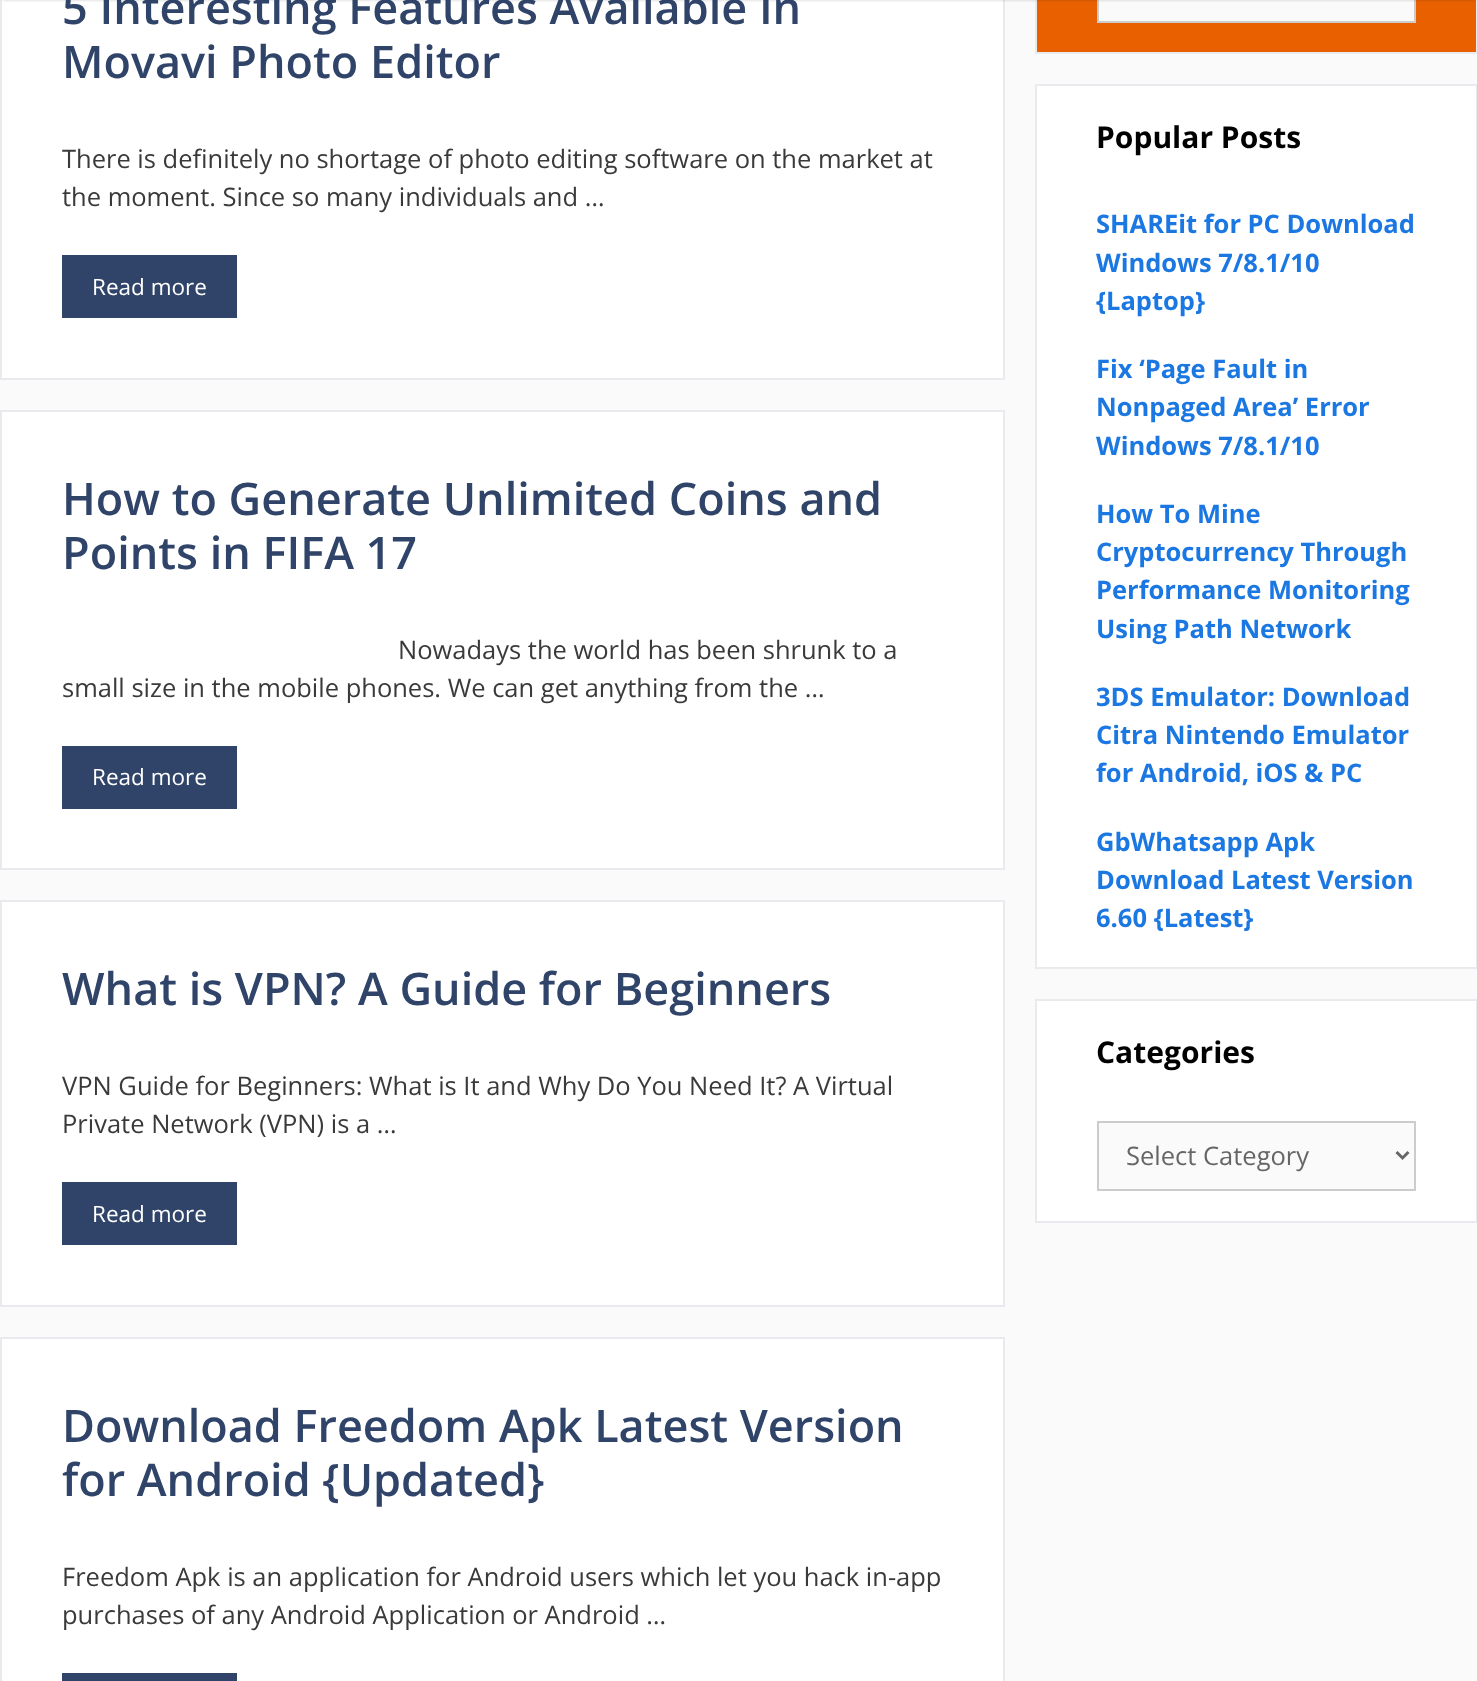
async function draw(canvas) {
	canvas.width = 1477;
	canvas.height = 1681;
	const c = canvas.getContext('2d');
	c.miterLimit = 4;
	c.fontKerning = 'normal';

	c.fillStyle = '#fafafa';
	c.fillRect(0, 0, 1477, 1681);
	c.fillStyle = '#fff';
	c.beginPath();
	c.rect(1, -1, 1003, 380);
	c.fill();
	c.strokeStyle = '#e8eaed';
	c.lineWidth = 2;
	c.stroke();
	c.fillStyle = '#e86000';
	c.beginPath();
	c.rect(1036, -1, 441, 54);
	c.fill();
	c.stroke();
	c.fillStyle = '#fafafa';
	c.beginPath();
	c.rect(1098, -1, 317, 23);
	c.fill();
	c.strokeStyle = '#ccc';
	c.stroke();
	c.fillStyle = '#00000033';
	c.filter = 'blur(1.5px)';
	c.beginPath();
	c.rect(3, -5, 1472, 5);
	c.fill();
	c.filter = 'none';
	c.font = '600 45px Open Sans';
	c.fillStyle = '#2f4468';
	c.fillText('5 Interesting Features Available In', 62, 24);
	c.fillText('Movavi Photo Editor', 62, 78);
	c.font = '25.5px Open Sans';
	c.fillStyle = '#3a3a3a';
	c.fillText('There is definitely no shortage of photo editing software on the market at', 62, 168);
	c.fillText('the moment. Since so many individuals and …', 62, 206);
	c.fillStyle = '#2f4468';
	c.fillRect(62, 255, 175, 63);
	c.font = '22.5px Open Sans';
	c.fillStyle = '#fff';
	c.fillText('Read more', 92, 295);
	c.beginPath();
	c.rect(1, 411, 1003, 458);
	c.fill();
	c.strokeStyle = '#e8eaed';
	c.stroke();
	c.font = '600 45px Open Sans';
	c.fillStyle = '#2f4468';
	c.fillText('How to Generate Unlimited Coins and', 62, 515);
	c.fillText('Points in FIFA 17', 62, 569);
	c.font = '25.5px Open Sans';
	c.fillStyle = '#3a3a3a';
	c.fillText('Nowadays the world has been shrunk to a', 398, 659);
	c.fillText('small size in the mobile phones. We can get anything from the …', 62, 697);
	c.fillStyle = '#2f4468';
	c.fillRect(62, 746, 175, 63);
	c.font = '22.5px Open Sans';
	c.fillStyle = '#fff';
	c.fillText('Read more', 92, 785);
	c.beginPath();
	c.rect(1, 901, 1003, 405);
	c.fill();
	c.stroke();
	c.font = '600 45px Open Sans';
	c.fillStyle = '#2f4468';
	c.fillText('What is VPN? A Guide for Beginners', 62, 1005);
	c.font = '25.5px Open Sans';
	c.fillStyle = '#3a3a3a';
	c.fillText('VPN Guide for Beginners: What is It and Why Do You Need It? A Virtual', 62, 1095);
	c.fillText('Private Network (VPN) is a …', 62, 1133);
	c.fillStyle = '#2f4468';
	c.fillRect(62, 1182, 175, 63);
	c.font = '22.5px Open Sans';
	c.fillStyle = '#fff';
	c.fillText('Read more', 92, 1222);
	c.beginPath();
	c.rect(1, 1338, 1003, 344);
	c.fill();
	c.stroke();
	c.font = '600 45px Open Sans';
	c.fillStyle = '#2f4468';
	c.fillText('Download Freedom Apk Latest Version', 62, 1442);
	c.fillText('for Android {Updated}', 62, 1496);
	c.font = '25.5px Open Sans';
	c.fillStyle = '#3a3a3a';
	c.fillText('Freedom Apk is an application for Android users which let you hack in-app', 62, 1586);
	c.fillText('purchases of any Android Application or Android …', 62, 1624);
	c.fillStyle = '#2f4468';
	c.fillRect(62, 1673, 175, 8);
	c.fillStyle = '#fff';
	c.beginPath();
	c.rect(1036, 85, 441, 883);
	c.fill();
	c.stroke();
	c.font = 'bold 30px Open Sans';
	c.fillStyle = '#000';
	c.fillText('Popular Posts', 1096, 148);
	c.font = 'bold 25.5px Open Sans';
	c.fillStyle = '#1b78e2';
	for (const [text, x, y] of [
		['SHAREit for PC Download', 1096, 233],
		['Windows 7/8.1/10', 1096, 272],
		['{Laptop}', 1096, 310],
		['Fix ‘Page Fault in', 1096, 378],
		['Nonpaged Area’ Error', 1096, 416],
		['Windows 7/8.1/10', 1096, 455],
		['How To Mine', 1096, 523],
		['Cryptocurrency Through', 1096, 561],
		['Performance Monitoring', 1096, 599],
		['Using Path Network', 1096, 638],
		['3DS Emulator: Download', 1096, 706],
		['Citra Nintendo Emulator', 1096, 744],
		['for Android, iOS & PC', 1096, 782],
		['GbWhatsapp Apk', 1096, 851],
		['Download Latest Version', 1096, 889],
		['6.60 {Latest}', 1096, 927],
	]) {
		c.fillText(text, x, y);
	}
	c.fillStyle = '#fff';
	c.beginPath();
	c.rect(1036, 1000, 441, 222);
	c.fill();
	c.stroke();
	c.font = 'bold 30px Open Sans';
	c.fillStyle = '#000';
	c.fillText('Categories', 1096, 1063);
	c.fillStyle = '#fafafa';
	c.beginPath();
	c.rect(1098, 1122, 317, 68);
	c.fill();
	c.strokeStyle = '#ccc';
	c.stroke();
	c.beginPath();
	c.moveTo(1396.5, 1152);
	c.lineTo(1402.5, 1158);
	c.lineTo(1408.5, 1152);
	c.strokeStyle = '#666';
	c.lineWidth = 3;
	c.stroke();
	c.font = '25.5px Open Sans';
	c.fillStyle = '#666';
	c.fillText('Select Category', 1126, 1165);
}

draw(document.querySelector('canvas'));
